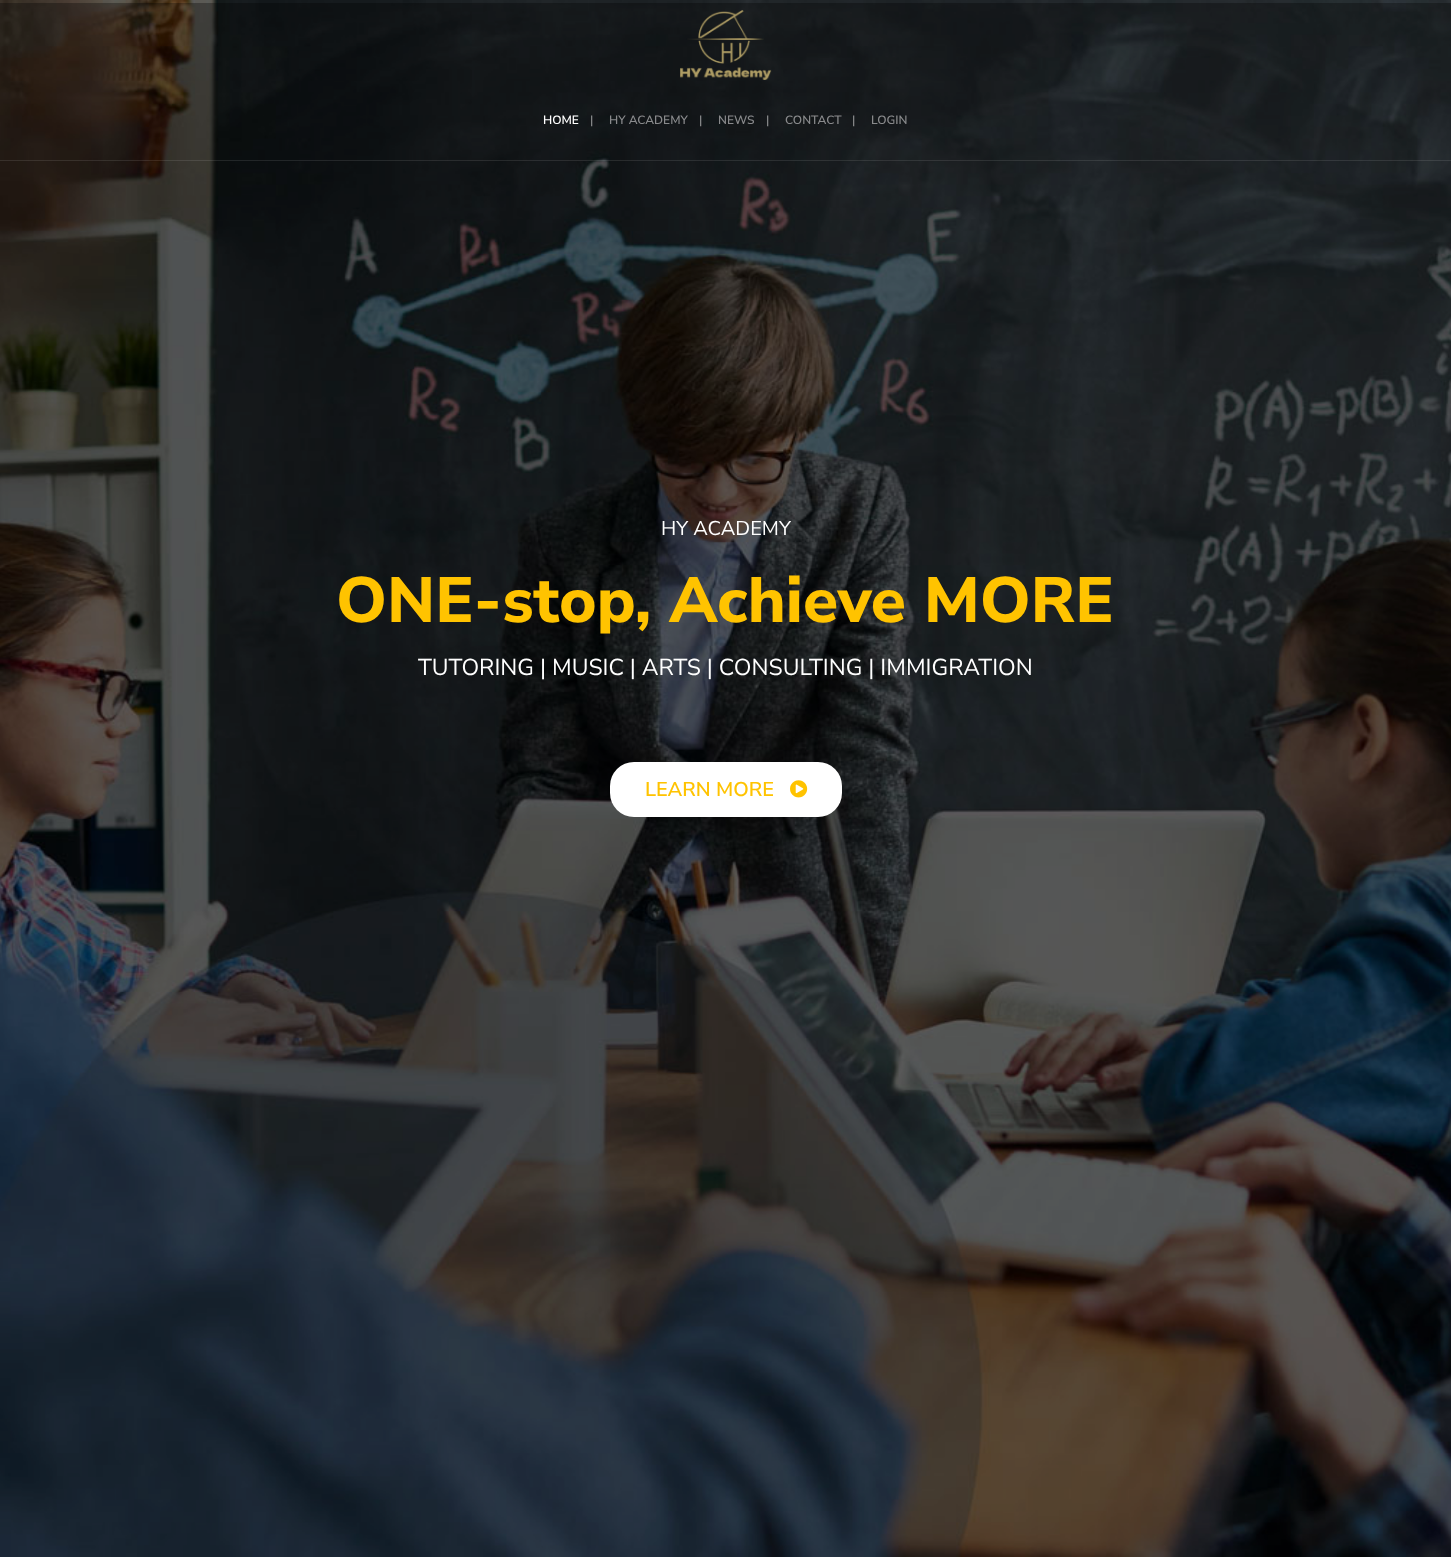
async function draw(canvas) {
	canvas.width = 1451;
	canvas.height = 1557;
	const c = canvas.getContext('2d');
	c.miterLimit = 4;
	c.fontKerning = 'normal';
	async function loadImage(src) {
		const img = new Image();
		img.src = src;
		await img.decode();
		return img;
	}

	c.fillStyle = '#fff';
	c.fillRect(0, 0, 1451, 1557);
	c.drawImage(await loadImage('img2.png'), 0, 0, 1451, 1557);
	c.fillStyle = '#ffffff1a';
	c.fillRect(0, 160, 1451, 1);
	c.drawImage(await loadImage('img1.png'), 680, 10, 92, 70);
	c.font = '600 12px Nunito Sans';
	c.fillStyle = '#fff';
	c.fillText('HOME', 543, 124);
	c.fillStyle = '#898a8c';
	for (const [text, x, y] of [
		['|', 590, 124],
		['HY ACADEMY', 609, 124],
		['|', 699, 124],
		['NEWS', 718, 124],
		['|', 766, 124],
		['CONTACT', 785, 124],
		['|', 852, 124],
		['LOGIN', 871, 124],
	]) {
		c.fillText(text, x, y);
	}
	c.font = '20px Nunito Sans';
	c.fillStyle = '#fff';
	c.fillText('HY ACADEMY', 661, 535);
	c.font = '800 64px Nunito Sans';
	c.fillStyle = '#ffc300';
	c.fillText('ONE-stop, Achieve MORE', 336, 622);
	c.font = '23px Nunito Sans';
	c.fillStyle = '#fff';
	c.fillText('TUTORING | MUSIC | ARTS | CONSULTING | IMMIGRATION', 418, 675);
	c.beginPath();
	c.roundRect(610, 762, 232, 55, 24);
	c.fill();
	c.font = '600 20px Nunito Sans';
	c.fillStyle = '#ffc300';
	c.fillText('LEARN MORE', 645, 796);
	c.drawImage(await loadImage('img3.png'), 790, 780, 18, 18);
}

draw(document.querySelector('canvas'));
